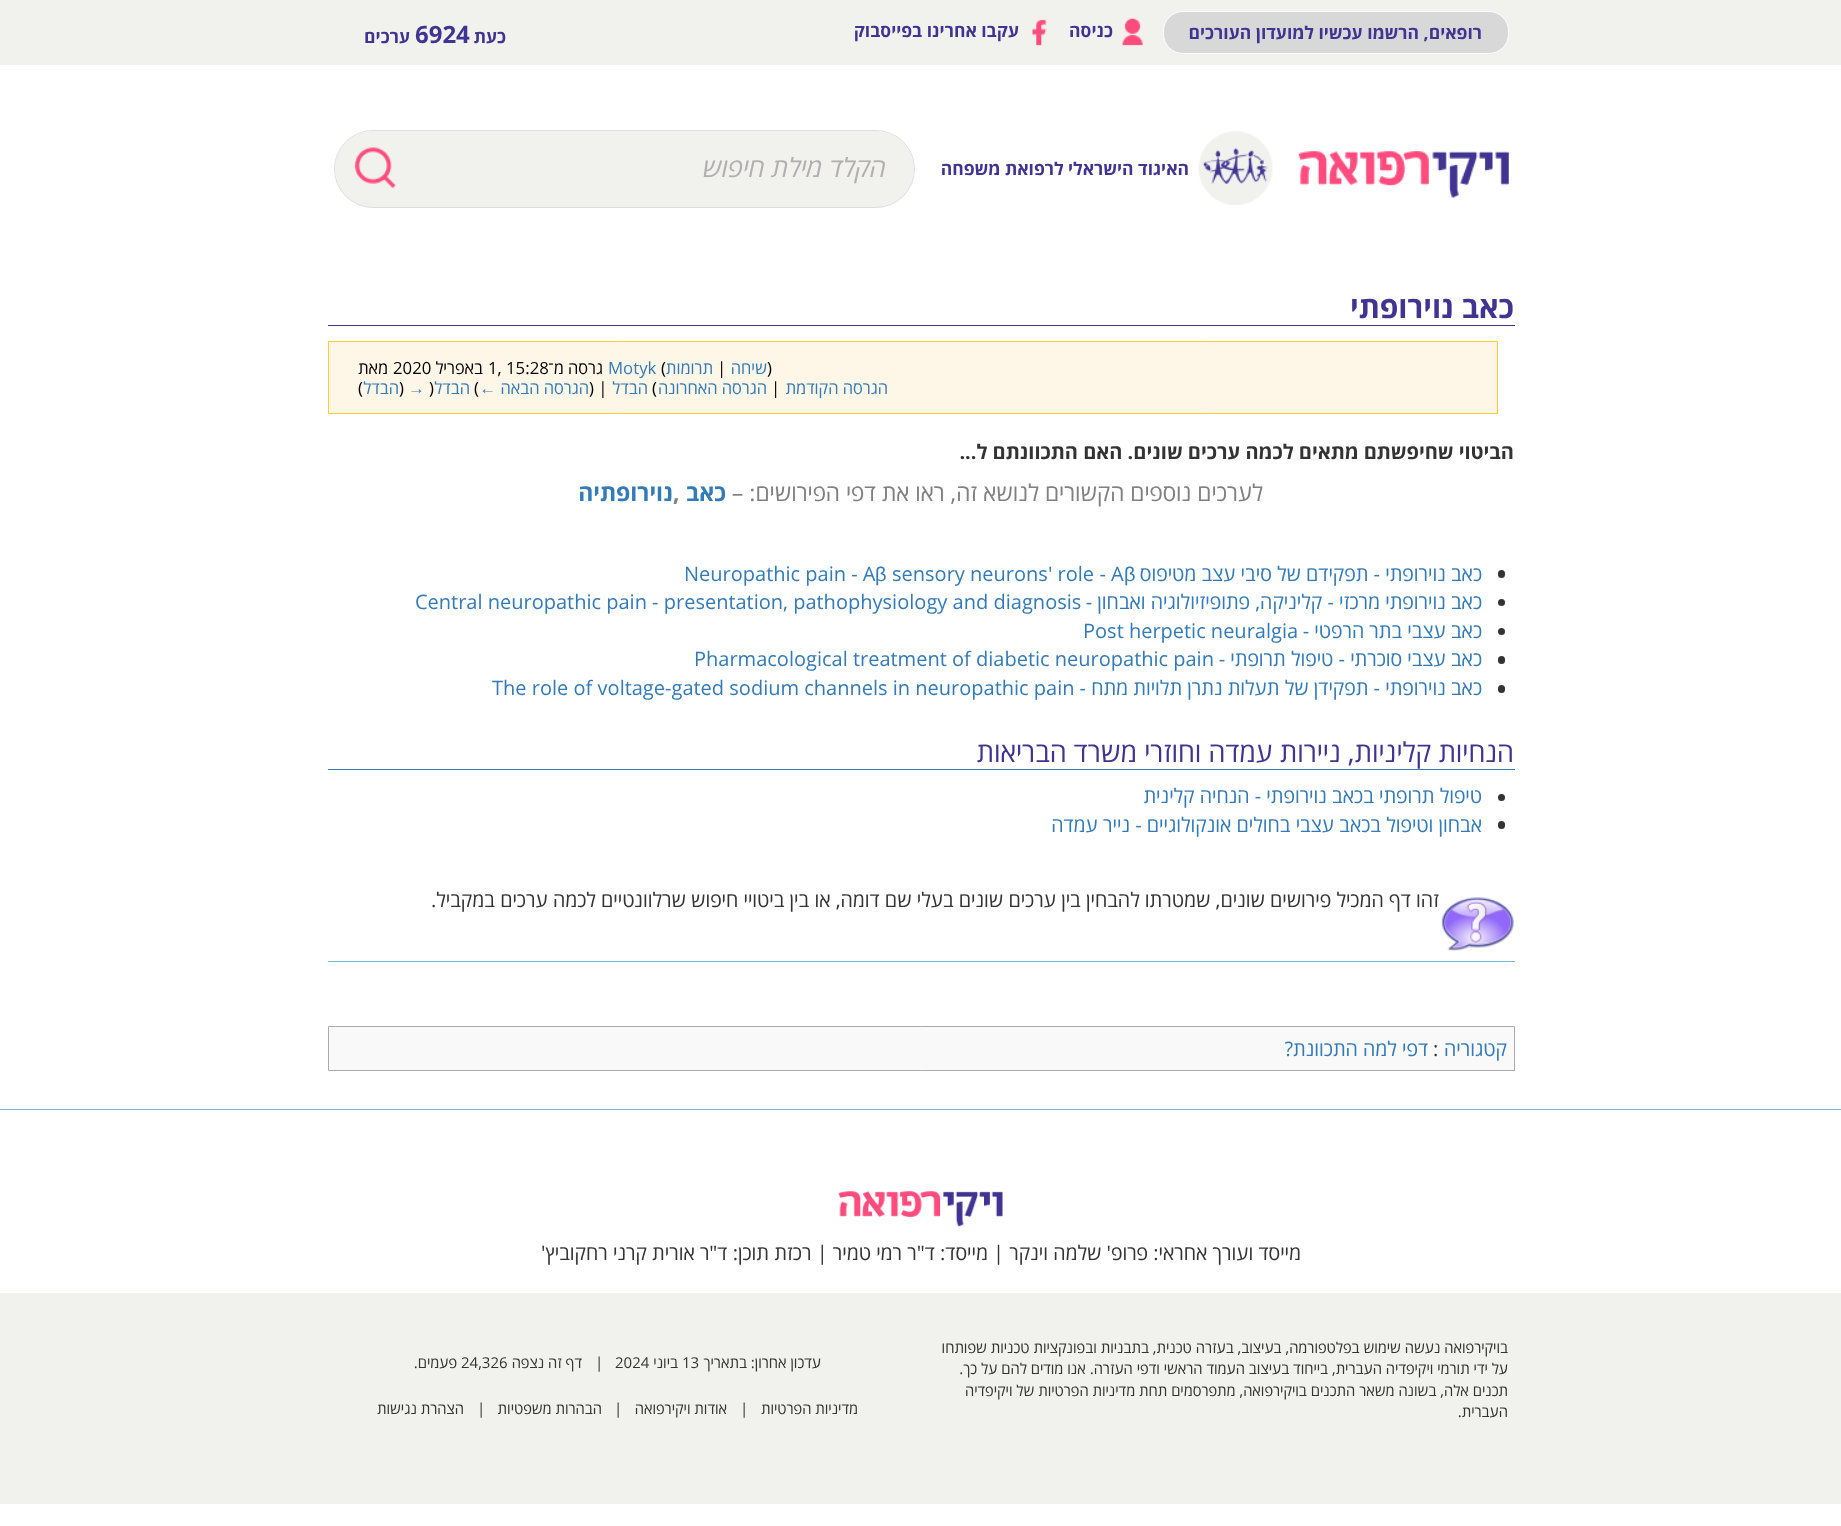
async function draw(canvas) {
	canvas.width = 1841;
	canvas.height = 1526;
	const c = canvas.getContext('2d');
	c.miterLimit = 4;
	c.fontKerning = 'normal';
	async function loadImage(src) {
		const img = new Image();
		img.src = src;
		await img.decode();
		return img;
	}

	c.fillStyle = '#fff';
	c.fillRect(0, 0, 1841, 1526);
	c.fillStyle = '#f1f1ed';
	c.fillRect(0, 0, 1841, 65);
	c.fillStyle = '#d8d8d8';
	c.beginPath();
	c.roundRect(1163.5, 11.5, 345, 42, 19.5);
	c.fill();
	c.strokeStyle = '#fff';
	c.stroke();
	c.direction = 'rtl';
	c.font = 'bold 17.5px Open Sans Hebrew';
	c.fillStyle = '#403391';
	c.fillText('רופאים, הרשמו עכשיו למועדון העורכים', 1482, 39);
	c.drawImage(await loadImage('img1.png'), 1122, 18, 21, 28);
	c.fillText('כניסה', 1113, 37);
	c.drawImage(await loadImage('img2.png'), 1032, 19, 15, 27);
	c.fillText('עקבו אחרינו בפייסבוק', 1019, 37);
	c.fillText('כעת', 506, 43);
	c.direction = 'ltr';
	c.font = 'bold 24px Open Sans Hebrew';
	c.fillText('6924', 415, 43);
	c.direction = 'rtl';
	c.font = 'bold 17.5px Open Sans Hebrew';
	c.fillText('ערכים', 410, 43);
	c.drawImage(await loadImage('img3.png'), 1298, 151, 211, 47);
	c.drawImage(await loadImage('img4.png'), 1198, 131, 75, 74);
	c.fillText('האיגוד הישראלי לרפואת משפחה', 1189, 175);
	c.fillStyle = '#f1f1ed';
	c.beginPath();
	c.roundRect(334.5, 130.5, 580, 77, 38.5);
	c.fill();
	c.strokeStyle = '#dedede';
	c.stroke();
	c.beginPath();
	c.roundRect(335, 131, 579, 75, 37.5);
	c.fill();
	c.font = 'italic 26.25px Open Sans Hebrew';
	c.fillStyle = '#b1afaf';
	c.fillText('הקלד מילת חיפוש', 886, 177);
	c.drawImage(await loadImage('img5.png'), 354, 147, 43, 42);
	c.fillStyle = '#403391';
	c.fillRect(328, 325, 1187, 1);
	c.font = 'bold 30px Open Sans Hebrew';
	c.fillText('כאב נוירופתי', 1514, 318);
	c.fillStyle = '#fef6e7';
	c.beginPath();
	c.rect(328.5, 341.5, 1169, 72);
	c.fill();
	c.strokeStyle = '#fc3';
	c.stroke();
	c.direction = 'ltr';
	c.font = '16.75px Open Sans Hebrew';
	c.fillStyle = '#000';
	c.fillText(')', 767, 374);
	c.direction = 'rtl';
	c.fillStyle = '#337ab7';
	c.fillText('שיחה', 767, 374);
	c.direction = 'ltr';
	c.fillStyle = '#000';
	c.fillText('|', 717, 374);
	c.direction = 'rtl';
	c.fillStyle = '#337ab7';
	c.fillText('תרומות', 713, 374);
	c.direction = 'ltr';
	c.fillStyle = '#000';
	c.fillText('(', 661, 374);
	c.fillStyle = '#337ab7';
	c.fillText('Motyk', 608, 374);
	c.direction = 'rtl';
	c.fillStyle = '#000';
	c.fillText('גרסה מ־', 603, 374);
	c.direction = 'ltr';
	c.fillText('1, 15:28', 488, 374);
	c.direction = 'rtl';
	c.fillText('באפריל', 483, 374);
	c.direction = 'ltr';
	c.fillText('2020', 393, 374);
	c.direction = 'rtl';
	c.fillText('מאת', 388, 374);
	c.fillStyle = '#337ab7';
	c.fillText('הגרסה הקודמת', 888, 394);
	c.direction = 'ltr';
	c.fillStyle = '#000';
	c.fillText('|', 771, 394);
	c.direction = 'rtl';
	c.fillStyle = '#337ab7';
	c.fillText('הגרסה האחרונה', 767, 394);
	c.direction = 'ltr';
	c.fillStyle = '#000';
	c.fillText('(', 652, 394);
	c.direction = 'rtl';
	c.fillStyle = '#337ab7';
	c.fillText('הבדל', 648, 394);
	c.direction = 'ltr';
	c.fillStyle = '#000';
	c.fillText(') |', 589, 394);
	c.direction = 'rtl';
	c.fillStyle = '#337ab7';
	c.fillText('הגרסה הבאה', 589, 394);
	c.font = '16.75px Liberation Sans';
	c.fillText('←', 496, 394);
	c.direction = 'ltr';
	c.font = '16.75px Open Sans Hebrew';
	c.fillStyle = '#000';
	c.fillText('(', 474, 394);
	c.direction = 'rtl';
	c.fillStyle = '#337ab7';
	c.fillText('הבדל', 470, 394);
	c.direction = 'ltr';
	c.fillStyle = '#000';
	c.fillText(')', 429, 394);
	c.font = '16.75px Liberation Sans';
	c.fillStyle = '#337ab7';
	c.fillText('→', 408, 394);
	c.font = '16.75px Open Sans Hebrew';
	c.fillStyle = '#000';
	c.fillText(')', 399, 394);
	c.direction = 'rtl';
	c.fillStyle = '#337ab7';
	c.fillText('הבדל', 399, 394);
	c.direction = 'ltr';
	c.fillStyle = '#000';
	c.fillText('(', 358, 394);
	c.direction = 'rtl';
	c.font = 'bold 20px Open Sans Hebrew';
	c.fillStyle = '#333';
	c.fillText('הביטוי שחיפשתם מתאים לכמה ערכים שונים. האם התכוונתם ל...', 1514, 459);
	c.font = '23px Open Sans Hebrew';
	c.fillStyle = '#808080';
	c.fillText('לערכים נוספים הקשורים לנושא זה, ראו את דפי הפירושים: –', 1263, 501);
	c.font = 'bold 23px Open Sans Hebrew';
	c.fillStyle = '#337ab7';
	c.fillText('כאב', 726, 501);
	c.direction = 'ltr';
	c.fillStyle = '#808080';
	c.fillText(',', 673, 501);
	c.direction = 'rtl';
	c.fillStyle = '#337ab7';
	c.fillText('נוירופתיה', 673, 501);
	c.fillStyle = '#333';
	c.beginPath();
	c.roundRect(1498, 570, 7, 8, 3.5);
	c.fill();
	c.font = '20px Open Sans Hebrew';
	c.fillStyle = '#337ab7';
	c.fillText('כאב נוירופתי - תפקידם של סיבי עצב מטיפוס', 1482, 581);
	c.direction = 'ltr';
	c.font = '20px Liberation Sans';
	c.fillText('β', 1124, 581);
	c.font = '20px Open Sans Hebrew';
	c.fillText('A', 1111, 581);
	c.direction = 'rtl';
	c.fillText('-', 1106, 581);
	c.direction = 'ltr';
	c.fillText('sensory neurons\' role', 892, 581);
	c.font = '20px Liberation Sans';
	c.fillText('β', 875, 581);
	c.font = '20px Open Sans Hebrew';
	c.fillText('Neuropathic pain - A', 684, 581);
	c.fillStyle = '#333';
	c.beginPath();
	c.arc(1501.5, 602.5, 3.5, 0, 2 * Math.PI);
	c.fill();
	c.direction = 'rtl';
	c.fillStyle = '#337ab7';
	c.fillText('כאב נוירופתי מרכזי - קליניקה, פתופיזיולוגיה ואבחון -', 1482, 609);
	c.direction = 'ltr';
	c.fillText('Central neuropathic pain - presentation, pathophysiology and diagnosis', 415, 609);
	c.fillStyle = '#333';
	c.beginPath();
	c.arc(1501.5, 631.5, 3.5, 0, 2 * Math.PI);
	c.fill();
	c.direction = 'rtl';
	c.fillStyle = '#337ab7';
	c.fillText('כאב עצבי בתר הרפטי -', 1482, 638);
	c.direction = 'ltr';
	c.fillText('Post herpetic neuralgia', 1083, 638);
	c.fillStyle = '#333';
	c.beginPath();
	c.roundRect(1498, 656, 7, 8, 3.5);
	c.fill();
	c.direction = 'rtl';
	c.fillStyle = '#337ab7';
	c.fillText('כאב עצבי סוכרתי - טיפול תרופתי -', 1482, 666);
	c.direction = 'ltr';
	c.fillText('Pharmacological treatment of diabetic neuropathic pain', 694, 666);
	c.fillStyle = '#333';
	c.beginPath();
	c.roundRect(1498, 685, 7, 8, 3.5);
	c.fill();
	c.direction = 'rtl';
	c.fillStyle = '#337ab7';
	c.fillText('כאב נוירופתי - תפקידן של תעלות נתרן תלויות מתח -', 1482, 695);
	c.direction = 'ltr';
	c.fillText('The role of voltage-gated sodium channels in neuropathic pain', 492, 695);
	c.fillRect(328, 769, 1187, 1);
	c.direction = 'rtl';
	c.font = '27.5px Open Sans Hebrew';
	c.fillStyle = '#403391';
	c.fillText('הנחיות קליניות, ניירות עמדה וחוזרי משרד הבריאות', 1514, 762);
	c.fillStyle = '#333';
	c.beginPath();
	c.arc(1501.5, 797.5, 3.5, 0, 2 * Math.PI);
	c.fill();
	c.font = '20px Open Sans Hebrew';
	c.fillStyle = '#337ab7';
	c.fillText('טיפול תרופתי בכאב נוירופתי - הנחיה קלינית', 1482, 803);
	c.fillStyle = '#333';
	c.beginPath();
	c.roundRect(1498, 821, 7, 8, 3.5);
	c.fill();
	c.fillStyle = '#337ab7';
	c.fillText('אבחון וטיפול בכאב עצבי בחולים אונקולוגיים - נייר עמדה', 1482, 832);
	c.drawImage(await loadImage('img6.png'), 1441, 897, 73, 54);
	c.fillStyle = '#333';
	c.fillText('זהו דף המכיל פירושים שונים, שמטרתו להבחין בין ערכים שונים בעלי שם דומה, או בין ביטויי חיפוש שרלוונטיים לכמה ערכים במקביל.', 1439, 907);
	c.fillStyle = '#77b7db';
	c.fillRect(328, 961, 1187, 1);
	c.fillStyle = '#f9f9f9';
	c.beginPath();
	c.rect(328.5, 1026.5, 1186, 44);
	c.fill();
	c.strokeStyle = '#aaa';
	c.stroke();
	c.fillStyle = '#337ab7';
	c.fillText('קטגוריה', 1507, 1056);
	c.direction = 'ltr';
	c.fillStyle = '#333';
	c.fillText(':', 1433, 1056);
	c.direction = 'rtl';
	c.fillStyle = '#337ab7';
	c.fillText('דפי למה התכוונת?', 1428, 1056);
	c.fillStyle = '#77b7db';
	c.fillRect(0, 1109, 1841, 1);
	c.drawImage(await loadImage('img7.png'), 838, 1191, 165, 36);
	c.fillStyle = '#333';
	c.fillText('מייסד ועורך אחראי: פרופ\' שלמה וינקר | מייסד: ד"ר רמי טמיר | רכזת תוכן: ד"ר אורית קרני רחקוביץ\'', 1301, 1260);
	c.fillStyle = '#f1f1ed';
	c.fillRect(0, 1293, 1841, 211);
	c.font = '15px Open Sans Hebrew';
	c.fillStyle = '#333';
	for (const [text, x, y] of [
		['בויקירפואה נעשה שימוש בפלטפורמה, בעיצוב, בעזרה טכנית, בתבניות ובפונקציות טכניות שפותחו', 1508, 1353],
		['על ידי תורמי ויקיפדיה העברית, בייחוד בעיצוב העמוד הראשי ודפי העזרה. אנו מודים להם על כך.', 1508, 1374],
		['תכנים אלה, בשונה משאר התכנים בויקירפואה, מתפרסמים תחת מדיניות הפרטיות של ויקיפדיה', 1508, 1396],
		['העברית.', 1508, 1417],
		['עדכון אחרון: בתאריך', 821, 1368],
	]) {
		c.fillText(text, x, y);
	}
	c.direction = 'ltr';
	c.fillText('13', 682, 1368);
	c.direction = 'rtl';
	c.fillText('ביוני', 678, 1368);
	c.direction = 'ltr';
	c.fillText('2024', 615, 1368);
	c.fillText('|', 595, 1368);
	c.direction = 'rtl';
	c.fillText('דף זה נצפה', 582, 1368);
	c.direction = 'ltr';
	c.fillText('24,326', 461, 1368);
	c.direction = 'rtl';
	c.fillText('פעמים.', 457, 1368);
	c.fillText('מדיניות הפרטיות', 858, 1414);
	c.direction = 'ltr';
	c.fillText('|', 740, 1414);
	c.direction = 'rtl';
	c.fillText('אודות ויקירפואה', 727, 1414);
	c.direction = 'ltr';
	c.fillText('|', 614, 1414);
	c.direction = 'rtl';
	c.fillText('הבהרות משפטיות', 602, 1414);
	c.direction = 'ltr';
	c.fillText('|', 477, 1414);
	c.direction = 'rtl';
	c.fillText('הצהרת נגישות', 464, 1414);
}

draw(document.querySelector('canvas'));
